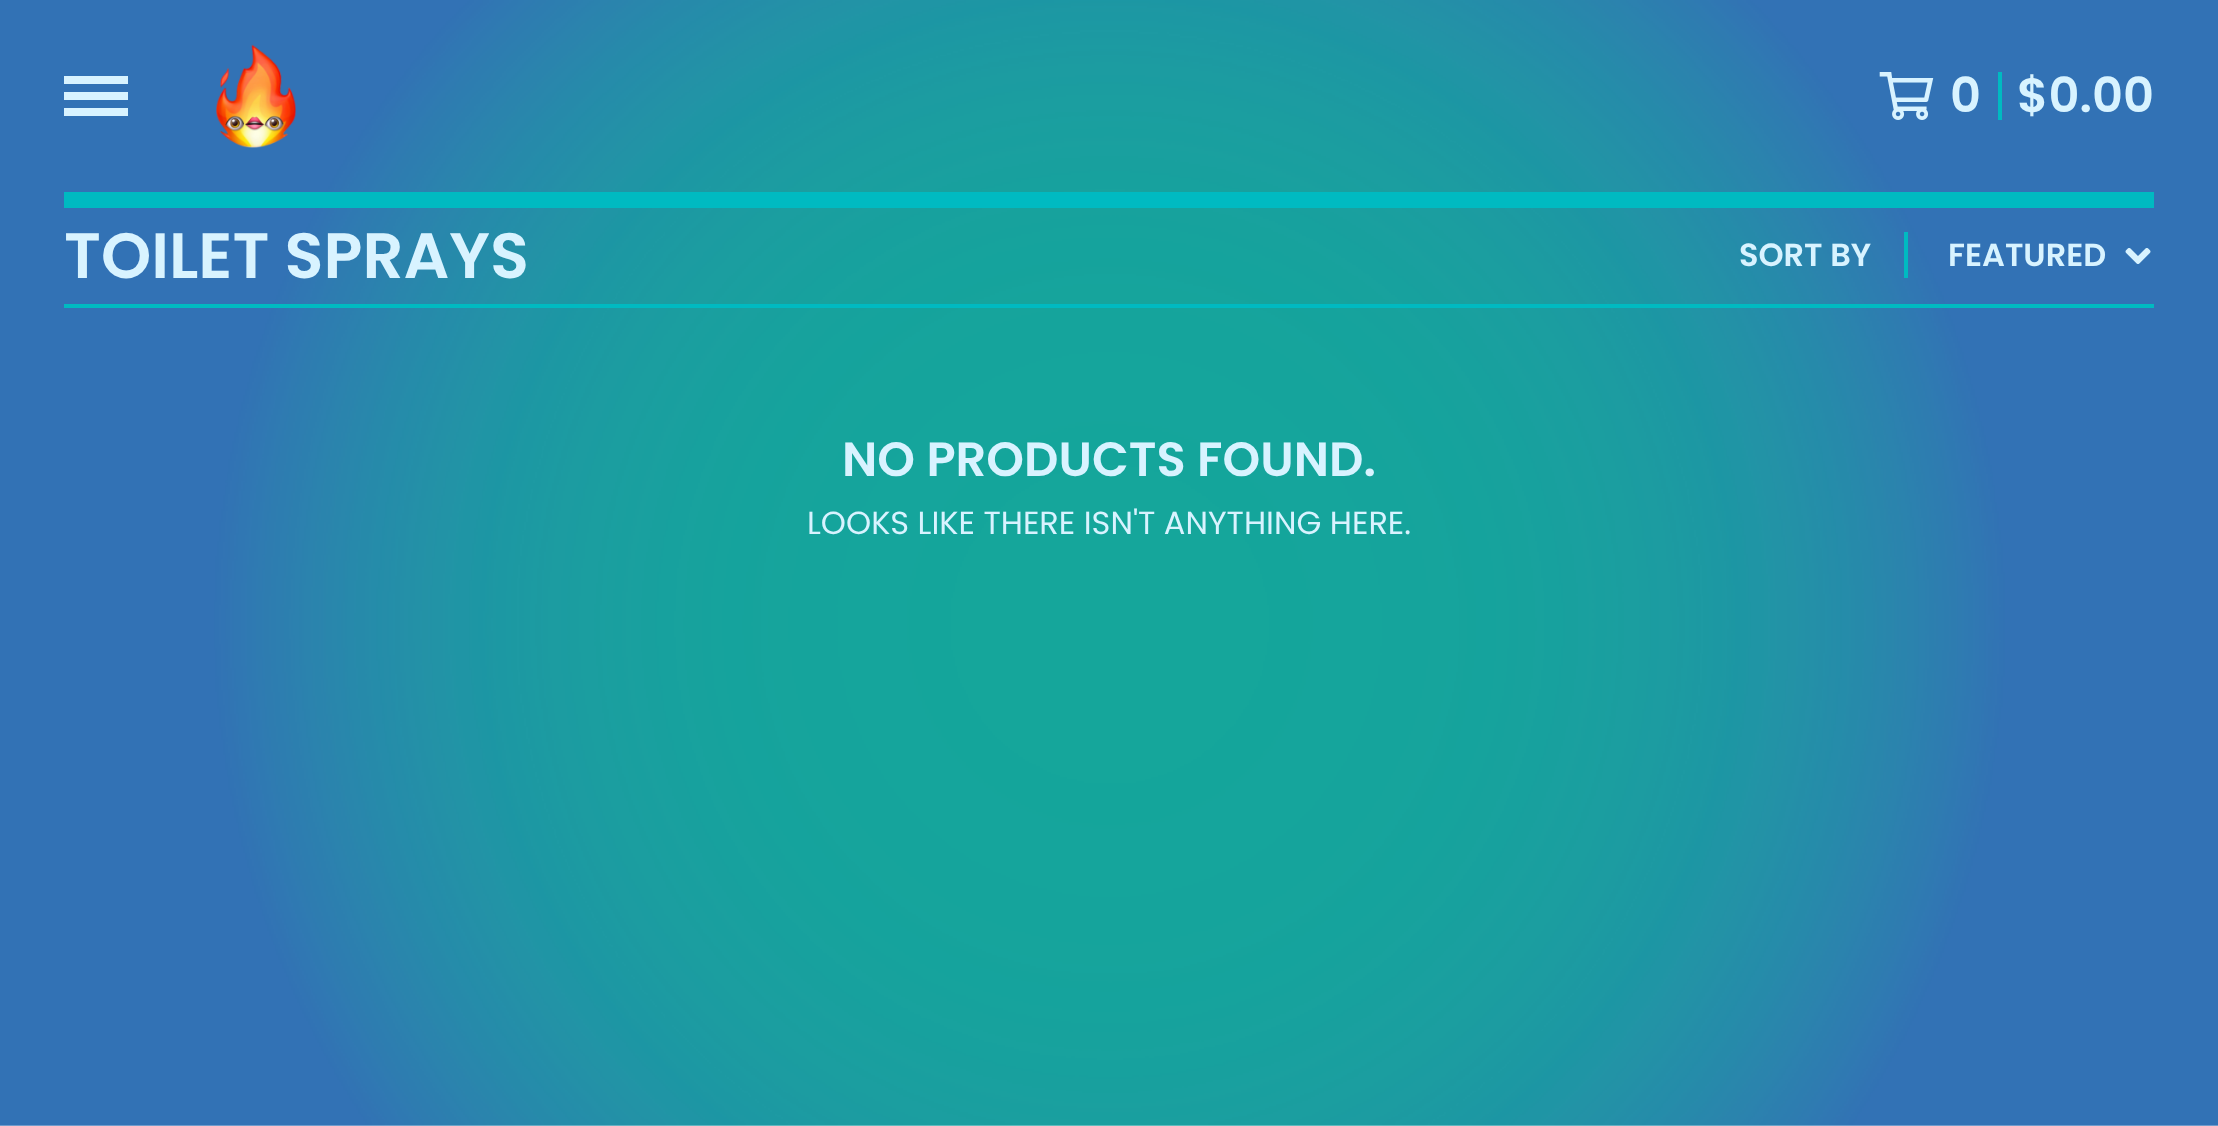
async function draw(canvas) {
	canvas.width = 2218;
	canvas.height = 1126;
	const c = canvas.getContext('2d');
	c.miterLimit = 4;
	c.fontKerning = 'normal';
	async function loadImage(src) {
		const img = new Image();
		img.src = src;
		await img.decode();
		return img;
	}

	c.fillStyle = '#fff';
	c.fillRect(0, 0, 2218, 1126);
	c.drawImage(await loadImage('img1.png'), 0, 0, 2218, 1126);
	for (const [x, y, w, h, color] of [
		[64, 192, 2090, 16, '#00bac1'],
		[64, 92, 64, 8, '#d8f3ff'],
		[64, 76, 64, 8, '#d8f3ff'],
		[64, 108, 64, 8, '#d8f3ff'],
	]) {
		c.fillStyle = color;
		c.fillRect(x, y, w, h);
	}
	c.drawImage(await loadImage('img2.png'), 216, 44, 80, 104);
	c.drawImage(await loadImage('img3.png'), 1879, 72, 55, 48);
	c.fillStyle = '#00bac1';
	c.fillRect(1998, 72, 4, 48);
	c.font = '600 48px Poppins';
	c.fillStyle = '#d8f3ff';
	c.fillText('0', 1950, 112);
	c.fillText('$0.00', 2017, 112);
	c.fillStyle = '#00bac1';
	c.fillRect(64, 304, 2090, 4);
	c.font = '600 64px Poppins';
	c.fillStyle = '#d8f3ff';
	c.fillText('TOILET SPRAYS', 64, 278);
	c.font = '600 32px Poppins';
	c.fillText('SORT BY', 1739, 266);
	c.fillStyle = '#00bac1';
	c.fillRect(1904, 232, 4, 46);
	c.fillStyle = '#d8f3ff';
	c.fillText('FEATURED', 1948, 266);
	c.drawImage(await loadImage('img4.png'), 2125, 248, 26, 16);
	c.font = '600 48px Poppins';
	c.fillText('NO PRODUCTS FOUND.', 842, 476);
	c.font = '32px Poppins';
	c.fillText('LOOKS LIKE THERE ISN\'T ANYTHING HERE.', 807, 534);
}

draw(document.querySelector('canvas'));
